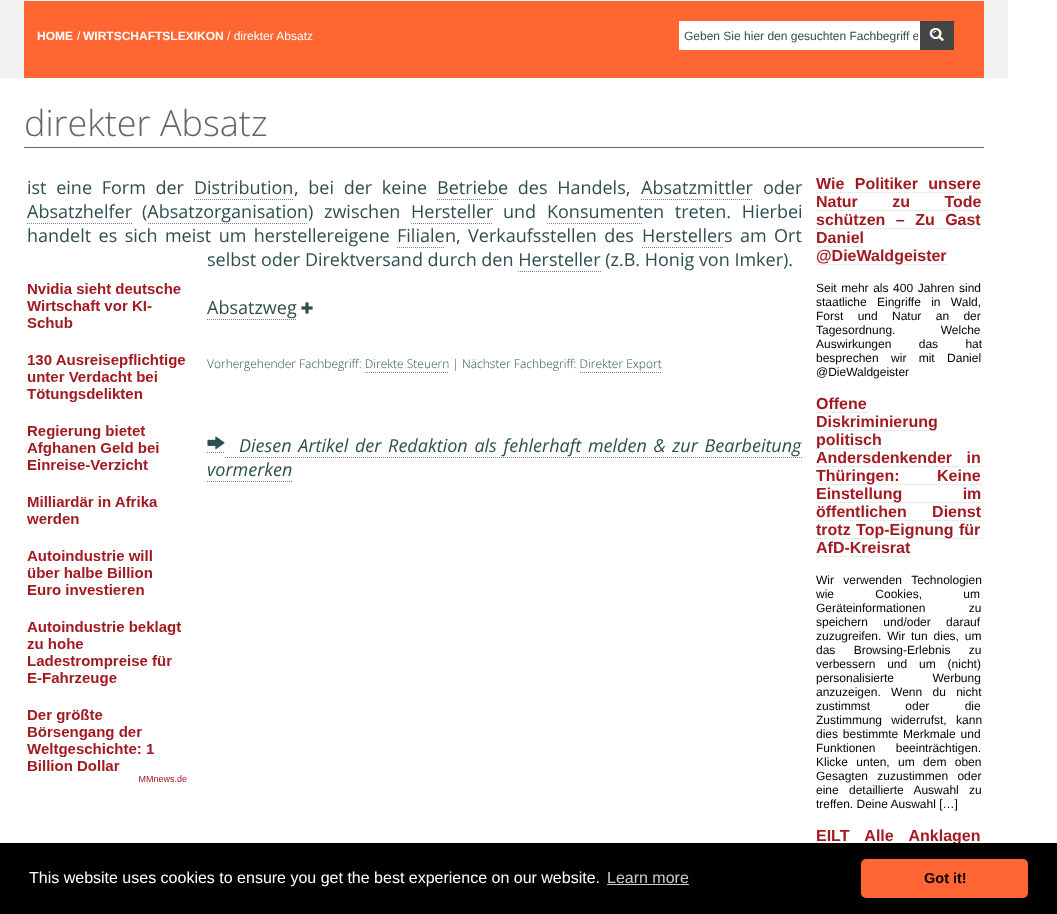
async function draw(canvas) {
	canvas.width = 1057;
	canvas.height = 914;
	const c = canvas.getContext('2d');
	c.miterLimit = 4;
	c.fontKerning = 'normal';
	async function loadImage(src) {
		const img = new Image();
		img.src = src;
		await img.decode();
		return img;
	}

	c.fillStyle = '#fff';
	c.fillRect(0, 0, 1057, 914);
	for (const [x, y, w, h, color] of [
		[0, 0, 1008, 1, '#f1f1f1'],
		[0, 1, 24, 77, '#f1f1f1'],
		[24, 1, 960, 20, '#ff6632'],
		[984, 1, 24, 77, '#f1f1f1'],
		[24, 21, 655, 29, '#ff6632'],
	]) {
		c.fillStyle = color;
		c.fillRect(x, y, w, h);
	}
	c.font = 'bold 12px Liberation Sans';
	c.fillStyle = '#fff';
	c.fillText('HOME', 37, 40);
	c.font = '12px Liberation Sans';
	c.fillText('/', 77, 40);
	c.font = 'bold 12px Liberation Sans';
	c.fillText('WIRTSCHAFTSLEXIKON', 83, 40);
	c.font = '12px Liberation Sans';
	c.fillText('/ direkter Absatz', 227, 40);
	c.save();
	c.beginPath();
	c.rect(684, 29, 234, 14);
	c.clip();
	c.fillStyle = '#2f4f4f';
	c.fillText('Geben Sie hier den gesuchten Fachbegriff e', 684, 40);
	c.restore();
	c.drawImage(await loadImage('img1.png'), 920, 21, 34, 29);
	for (const [x, y, w, h, color] of [
		[954, 21, 30, 57, '#ff6632'],
		[24, 50, 930, 28, '#ff6632'],
		[24, 147, 960, 1, '#606a5f'],
	]) {
		c.fillStyle = color;
		c.fillRect(x, y, w, h);
	}
	c.font = '300 36px Open Sans';
	c.fillText('direkter Absatz', 24, 136);
	c.wordSpacing = '5px';
	c.font = '18px Open Sans';
	c.fillStyle = '#2f4f4f';
	c.fillText('ist eine Form der', 27, 194);
	c.wordSpacing = '0px';
	c.fillText('Distribution', 194, 194);
	c.beginPath();
	c.moveTo(194, 199.5);
	c.lineTo(294, 199.5);
	c.strokeStyle = '#808080';
	c.setLineDash([1, 1]);
	c.stroke();
	c.wordSpacing = '5px';
	c.fillText(', bei der keine', 294, 194);
	c.wordSpacing = '0px';
	c.fillText('Betrieb', 437, 194);
	c.beginPath();
	c.moveTo(437, 199.5);
	c.lineTo(498, 199.5);
	c.stroke();
	c.wordSpacing = '5px';
	c.fillText('e des Handels,', 498, 194);
	c.wordSpacing = '0px';
	c.fillText('Absatzmittler', 641, 194);
	c.beginPath();
	c.moveTo(641, 199.5);
	c.lineTo(753, 199.5);
	c.stroke();
	c.fillText('oder', 763, 194);
	c.fillText('Absatzhelfer', 27, 218);
	c.beginPath();
	c.moveTo(27, 223.5);
	c.lineTo(132, 223.5);
	c.stroke();
	c.fillText('(Absatzorganisation', 142, 218);
	c.wordSpacing = '6px';
	c.fillText(') zwischen', 308, 218);
	c.wordSpacing = '0px';
	c.fillText('Hersteller', 411, 218);
	c.beginPath();
	c.moveTo(411, 223.5);
	c.lineTo(493, 223.5);
	c.stroke();
	c.fillText('und', 503, 218);
	c.fillText('Konsument', 547, 218);
	c.beginPath();
	c.moveTo(547, 223.5);
	c.lineTo(643, 223.5);
	c.stroke();
	c.wordSpacing = '6px';
	c.fillText('en treten. Hierbei', 643, 218);
	c.beginPath();
	c.moveTo(148, 223.5);
	c.lineTo(308, 223.5);
	c.stroke();
	c.wordSpacing = '2.75px';
	c.fillText('handelt es sich meist um herstellereigene', 27, 242);
	c.wordSpacing = '0px';
	c.fillText('Filiale', 397, 242);
	c.beginPath();
	c.moveTo(397, 247.5);
	c.lineTo(445, 247.5);
	c.stroke();
	c.wordSpacing = '2.75px';
	c.fillText('n, Verkaufsstellen des', 445, 242);
	c.wordSpacing = '0px';
	c.fillText('Hersteller', 642, 242);
	c.beginPath();
	c.moveTo(642, 247.5);
	c.lineTo(724, 247.5);
	c.stroke();
	c.wordSpacing = '2.75px';
	c.fillText('s am Ort', 724, 242);
	c.wordSpacing = '0px';
	c.fillText('selbst oder Direktversand durch den Hersteller (z.B. Honig von Imker).', 207, 266);
	c.beginPath();
	c.moveTo(518, 271.5);
	c.lineTo(601, 271.5);
	c.stroke();
	c.drawImage(await loadImage('img2.png'), 27, 283, 160, 499);
	c.fillText('Absatzweg', 207, 314);
	c.beginPath();
	c.moveTo(207, 319.5);
	c.lineTo(297, 319.5);
	c.stroke();
	c.drawImage(await loadImage('img3.png'), 301, 302, 12, 12);
	c.font = '300 12px Open Sans';
	c.fillText('Vorhergehender Fachbegriff: Direkte Steuern | Nächster Fachbegriff: Direkter Export', 207, 368);
	c.beginPath();
	c.moveTo(365, 372.5);
	c.lineTo(449, 372.5);
	c.stroke();
	c.beginPath();
	c.moveTo(580, 372.5);
	c.lineTo(662, 372.5);
	c.stroke();
	c.drawImage(await loadImage('img4.png'), 207, 436, 18, 14);
	c.wordSpacing = '2px';
	c.font = 'italic 18px Open Sans';
	c.fillText('Diesen Artikel der Redaktion als fehlerhaft melden & zur Bearbeitung', 239, 452);
	c.beginPath();
	c.moveTo(207, 452.5);
	c.lineTo(225, 452.5);
	c.stroke();
	c.beginPath();
	c.moveTo(225, 457.5);
	c.lineTo(802, 457.5);
	c.stroke();
	c.wordSpacing = '0px';
	c.fillText('vormerken', 207, 476);
	c.beginPath();
	c.moveTo(207, 481.5);
	c.lineTo(292, 481.5);
	c.stroke();
	c.wordSpacing = '6px';
	c.font = 'bold 16px Liberation Sans';
	c.fillStyle = '#a21a21';
	c.fillText('Wie Politiker unsere', 816, 189);
	c.beginPath();
	c.moveTo(816, 192.5);
	c.lineTo(981, 192.5);
	c.strokeStyle = '#dbdbdb';
	c.stroke();
	c.wordSpacing = '30px';
	c.fillText('Natur zu Tode', 816, 207);
	c.beginPath();
	c.moveTo(816, 210.5);
	c.lineTo(981, 210.5);
	c.stroke();
	c.wordSpacing = '6px';
	c.fillText('schützen – Zu Gast', 816, 225);
	c.beginPath();
	c.moveTo(816, 228.5);
	c.lineTo(981, 228.5);
	c.stroke();
	c.wordSpacing = '0px';
	c.fillText('Daniel', 816, 243);
	c.beginPath();
	c.moveTo(816, 246.5);
	c.lineTo(864, 246.5);
	c.stroke();
	c.beginPath();
	c.moveTo(816, 264.5);
	c.lineTo(947, 264.5);
	c.stroke();
	c.fillText('@DieWaldgeister', 816, 261);
	c.wordSpacing = '1.25px';
	c.font = '12px Liberation Sans';
	c.fillStyle = '#000';
	c.fillText('Seit mehr als 400 Jahren sind', 816, 292);
	c.wordSpacing = '7px';
	c.fillText('staatliche Eingriffe in Wald,', 816, 306);
	c.wordSpacing = '11px';
	c.fillText('Forst und Natur an der', 816, 320);
	c.wordSpacing = '42px';
	c.fillText('Tagesordnung. Welche', 816, 334);
	c.wordSpacing = '24px';
	c.fillText('Auswirkungen das hat', 816, 348);
	c.wordSpacing = '9px';
	c.fillText('besprechen wir mit Daniel', 816, 362);
	c.wordSpacing = '0px';
	c.fillText('@DieWaldgeister', 816, 376);
	c.font = 'bold 16px Liberation Sans';
	c.fillStyle = '#a21a21';
	c.fillText('Offene', 816, 409);
	c.beginPath();
	c.moveTo(816, 412.5);
	c.lineTo(867, 412.5);
	c.stroke();
	c.beginPath();
	c.moveTo(816, 430.5);
	c.lineTo(938, 430.5);
	c.stroke();
	c.fillText('Diskriminierung', 816, 427);
	c.beginPath();
	c.moveTo(816, 448.5);
	c.lineTo(882, 448.5);
	c.stroke();
	c.fillText('politisch', 816, 445);
	c.wordSpacing = '10px';
	c.fillText('Andersdenkender in', 816, 463);
	c.beginPath();
	c.moveTo(816, 466.5);
	c.lineTo(981, 466.5);
	c.stroke();
	c.beginPath();
	c.moveTo(816, 484.5);
	c.lineTo(981, 484.5);
	c.stroke();
	c.wordSpacing = '33px';
	c.fillText('Thüringen: Keine', 816, 481);
	c.beginPath();
	c.moveTo(816, 502.5);
	c.lineTo(981, 502.5);
	c.stroke();
	c.wordSpacing = '56px';
	c.fillText('Einstellung im', 816, 499);
	c.wordSpacing = '21px';
	c.fillText('öffentlichen Dienst', 816, 517);
	c.beginPath();
	c.moveTo(816, 520.5);
	c.lineTo(981, 520.5);
	c.stroke();
	c.beginPath();
	c.moveTo(816, 538.5);
	c.lineTo(981, 538.5);
	c.stroke();
	c.wordSpacing = '1px';
	c.fillText('trotz Top-Eignung für', 816, 535);
	c.wordSpacing = '0px';
	c.fillText('AfD-Kreisrat', 816, 553);
	c.beginPath();
	c.moveTo(816, 556.5);
	c.lineTo(910, 556.5);
	c.stroke();
	c.wordSpacing = '6px';
	c.font = '12px Liberation Sans';
	c.fillStyle = '#000';
	c.fillText('Wir verwenden Technologien', 816, 584);
	c.wordSpacing = '38px';
	c.fillText('wie Cookies, um', 816, 598);
	c.wordSpacing = '40px';
	c.fillText('Geräteinformationen zu', 816, 612);
	c.wordSpacing = '12px';
	c.fillText('speichern und/oder darauf', 816, 626);
	c.wordSpacing = '2.5px';
	c.fillText('zuzugreifen. Wir tun dies, um', 816, 640);
	c.wordSpacing = '15px';
	c.fillText('das Browsing-Erlebnis zu', 816, 654);
	c.wordSpacing = '8.5px';
	c.fillText('verbessern und um (nicht)', 816, 668);
	c.wordSpacing = '35px';
	c.fillText('personalisierte Werbung', 816, 682);
	c.wordSpacing = '7px';
	c.fillText('anzuzeigen. Wenn du nicht', 816, 696);
	c.wordSpacing = '32px';
	c.fillText('zustimmst oder die', 816, 710);
	c.wordSpacing = '6px';
	c.fillText('Zustimmung widerrufst, kann', 816, 724);
	c.wordSpacing = '1.5px';
	c.fillText('dies bestimmte Merkmale und', 816, 738);
	c.wordSpacing = '17px';
	c.fillText('Funktionen beeinträchtigen.', 816, 752);
	c.wordSpacing = '5px';
	c.fillText('Klicke unten, um dem oben', 816, 766);
	c.wordSpacing = '6px';
	c.fillText('Gesagten zuzustimmen oder', 816, 780);
	c.wordSpacing = '7px';
	c.fillText('eine detaillierte Auswahl zu', 816, 794);
	c.wordSpacing = '0px';
	c.fillText('treffen. Deine Auswahl […]', 816, 808);
	c.wordSpacing = '11px';
	c.font = 'bold 16px Liberation Sans';
	c.fillStyle = '#a21a21';
	c.fillText('EILT Alle Anklagen', 816, 841);
	c.fillStyle = '#000';
	c.fillRect(0, 843, 1057, 71);
	c.wordSpacing = '0px';
	c.font = '16px Liberation Sans';
	c.fillStyle = '#fff';
	c.fillText('This website uses cookies to ensure you get the best experience on our website.', 29, 883);
	c.fillStyle = '#ccc';
	c.fillText('Learn more', 607, 883);
	c.fillRect(607, 884, 82, 1);
	c.fillStyle = '#ff6634';
	c.beginPath();
	c.roundRect(861, 859, 167, 39, 5);
	c.fill();
	c.font = 'bold 14.5px Liberation Sans';
	c.fillStyle = '#000';
	c.fillText('Got it!', 924, 883);
}

draw(document.querySelector('canvas'));
